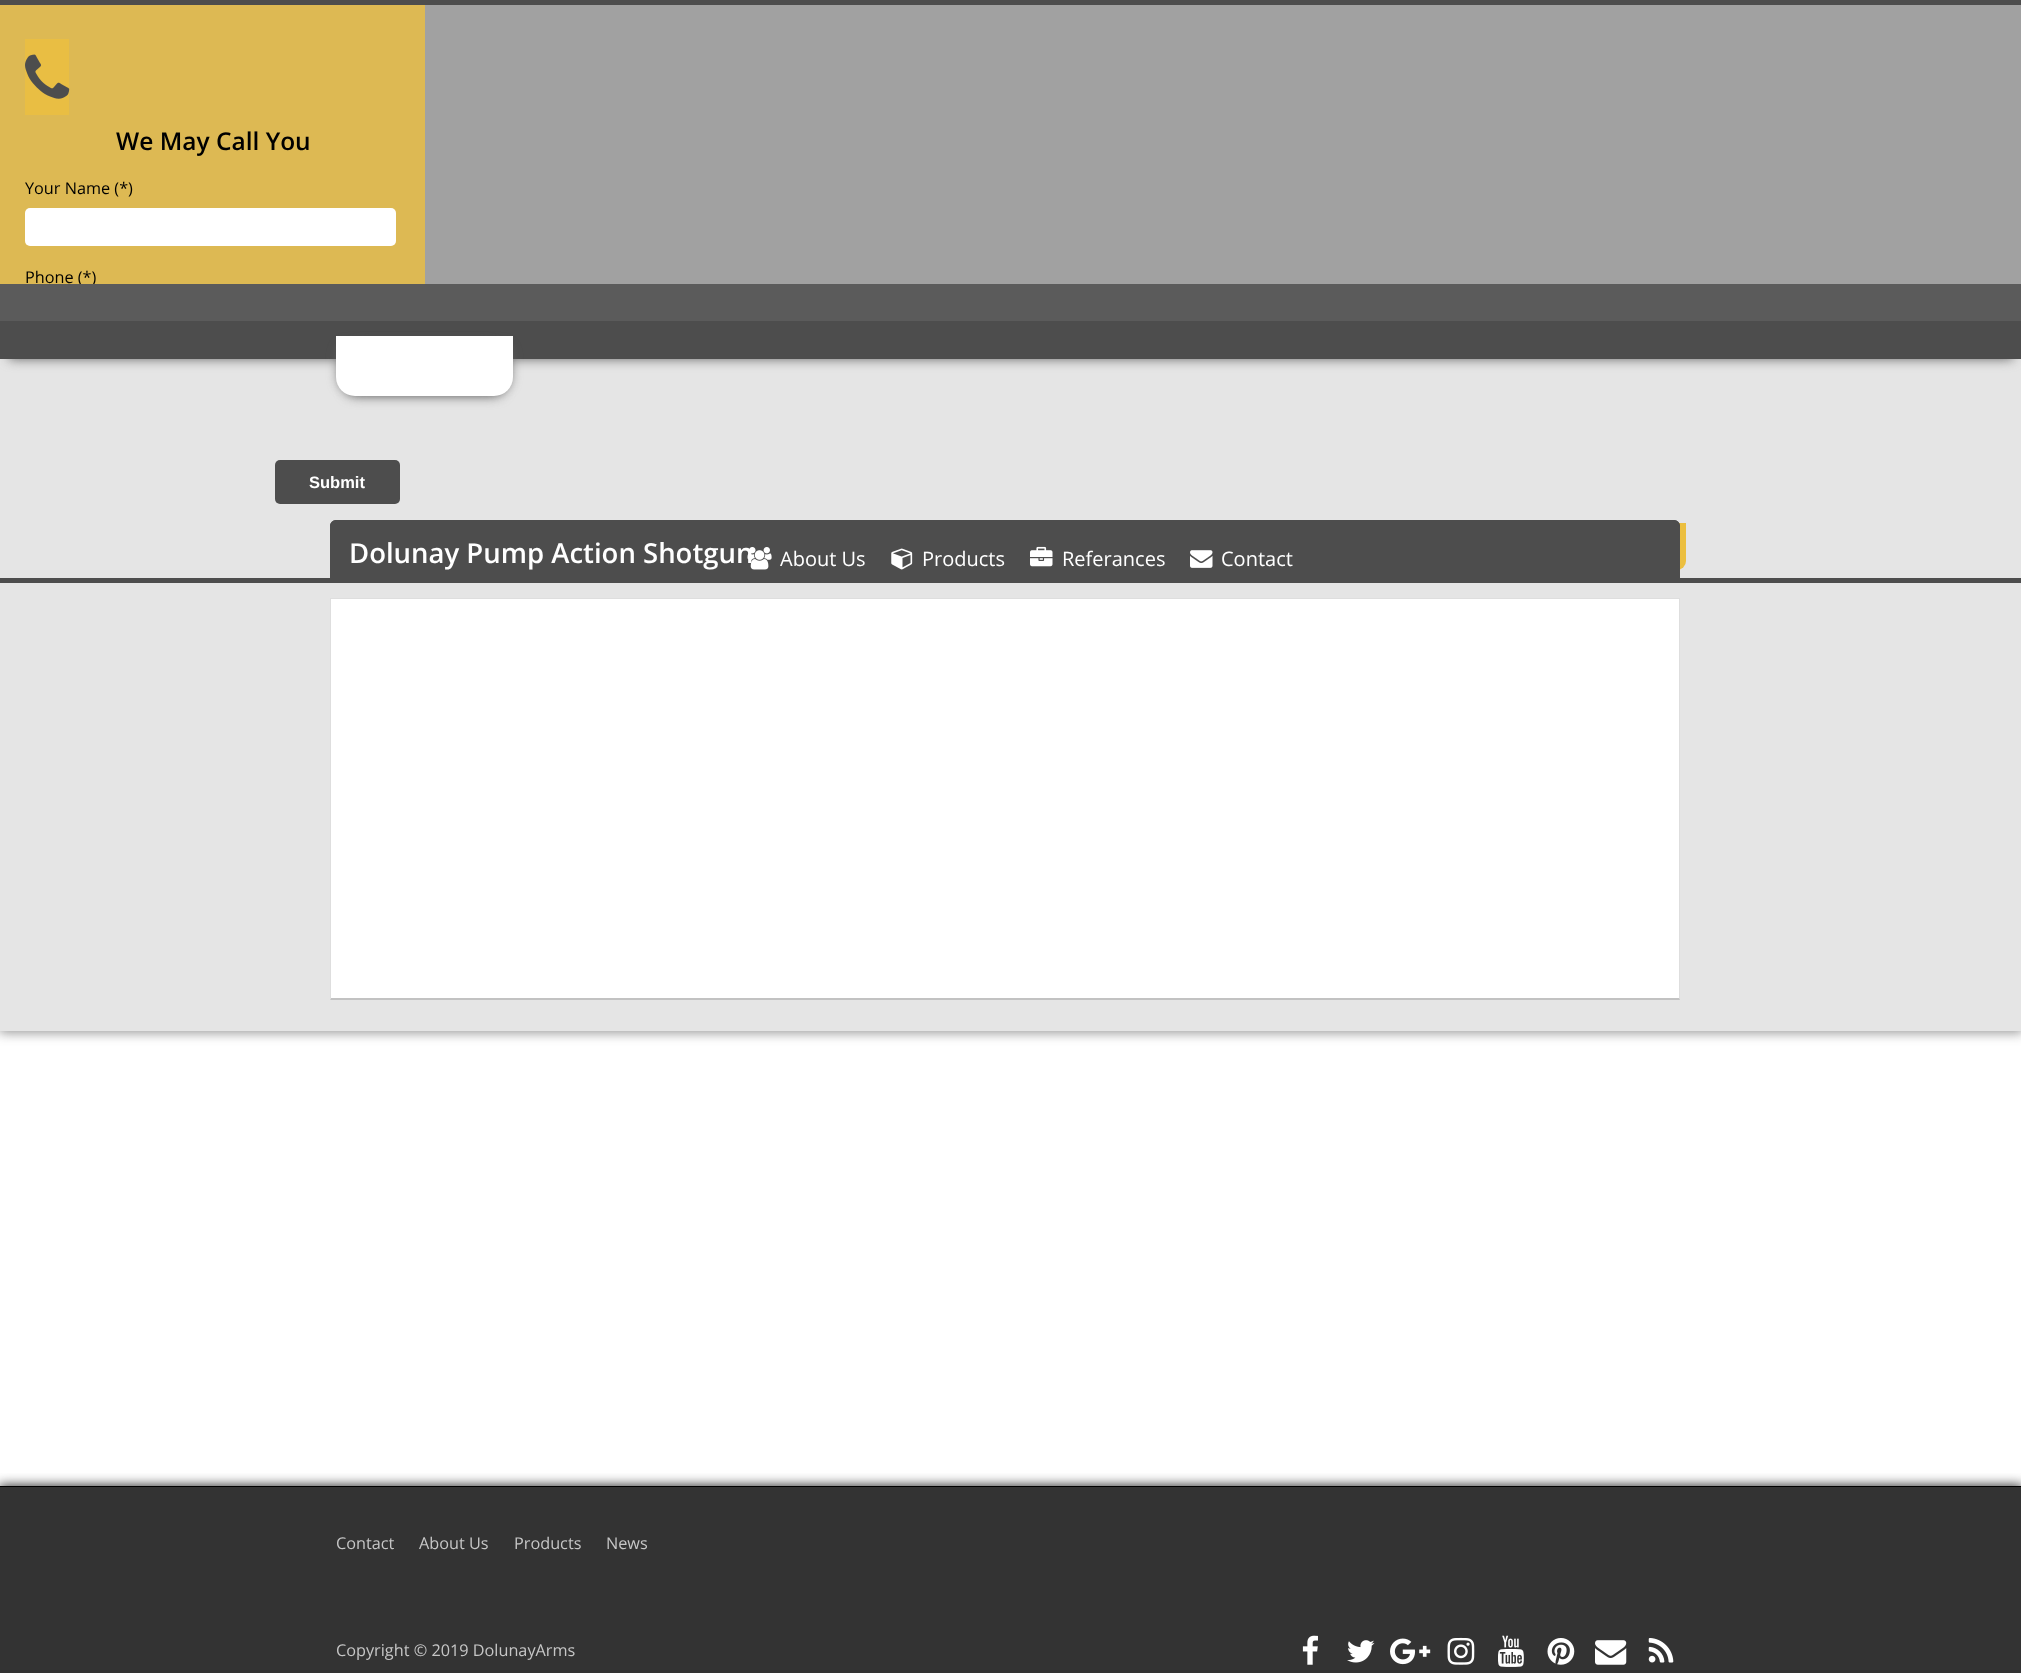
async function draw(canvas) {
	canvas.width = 2021;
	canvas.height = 1673;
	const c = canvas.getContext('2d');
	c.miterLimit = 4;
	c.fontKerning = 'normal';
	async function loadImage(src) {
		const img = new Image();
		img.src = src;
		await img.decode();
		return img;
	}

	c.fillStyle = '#a1a1a1';
	c.fillRect(0, 0, 2021, 1673);
	for (const [x, y, w, h, color] of [
		[0, 0, 2021, 5, '#4d4d4d'],
		[0, 5, 425, 279, '#ddb953'],
		[25, 39, 44, 76, '#e9be43'],
	]) {
		c.fillStyle = color;
		c.fillRect(x, y, w, h);
	}
	c.drawImage(await loadImage('img1.png'), 25, 54, 45, 45);
	c.font = '600 24.5px Open Sans';
	c.fillStyle = '#000';
	c.fillText('We May Call You', 116, 150);
	c.font = '16.25px Open Sans';
	c.fillText('Your Name (*)', 25, 194);
	c.fillStyle = '#fff';
	c.beginPath();
	c.roundRect(25, 208, 371, 38, 5);
	c.fill();
	c.fillStyle = '#000';
	c.fillText('Phone (*)', 25, 283);
	c.fillStyle = '#fff';
	c.fillRect(0, 1031, 2021, 642);
	c.fillStyle = '#32323280';
	c.filter = 'blur(6px)';
	c.beginPath();
	c.rect(-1, 358, 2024, 675);
	c.fill();
	c.filter = 'none';
	c.fillStyle = '#e5e5e5';
	c.fillRect(0, 359, 2021, 672);
	c.fillStyle = '#4d4d4d';
	c.beginPath();
	c.roundRect(275, 460, 125, 44, 5);
	c.fill();
	c.font = 'bold 16.5px Liberation Sans';
	c.fillStyle = '#fff';
	c.fillText('Submit', 309, 488);
	c.fillStyle = '#4d4d4d';
	c.fillRect(0, 578, 2021, 5);
	c.fillStyle = '#ecbf3f';
	c.beginPath();
	c.roundRect(1635, 523, 51, 47, [0, 0, 9, 0]);
	c.fill();
	c.fillStyle = '#4d4d4d';
	c.beginPath();
	c.roundRect(330, 520, 1350, 63, [6, 6, 0, 0]);
	c.fill();
	c.beginPath();
	c.moveTo(336, 520);
	c.lineTo(1674, 520);
	c.bezierCurveTo(1677, 520, 1680, 523, 1680, 526);
	c.lineTo(1680, 582);
	c.lineTo(330, 582);
	c.lineTo(330, 526);
	c.bezierCurveTo(330, 523, 333, 520, 336, 520);
	c.closePath();
	c.moveTo(336, 521);
	c.lineTo(1674, 521);
	c.bezierCurveTo(1677, 521, 1679, 523, 1679, 526);
	c.lineTo(1679, 582);
	c.lineTo(331, 582);
	c.lineTo(331, 526);
	c.bezierCurveTo(331, 523, 333, 521, 336, 521);
	c.closePath();
	c.fill('evenodd');
	c.font = '600 27.5px Open Sans';
	c.fillStyle = '#fff';
	c.fillText('Dolunay Pump Action Shotgun', 349, 563);
	c.fillRect(331, 599, 1348, 399);
	c.fillStyle = '#dedede';
	c.fillRect(330, 598, 1350, 1);
	c.beginPath();
	c.moveTo(1680, 598);
	c.lineTo(1680, 1000);
	c.lineTo(1679, 998);
	c.lineTo(1679, 599);
	c.closePath();
	c.fill();
	c.fillStyle = '#c2c2c2';
	c.beginPath();
	c.moveTo(1680, 1000);
	c.lineTo(330, 1000);
	c.lineTo(331, 998);
	c.lineTo(1679, 998);
	c.closePath();
	c.fill();
	c.fillStyle = '#dedede';
	c.beginPath();
	c.moveTo(330, 1000);
	c.lineTo(330, 598);
	c.lineTo(331, 599);
	c.lineTo(331, 998);
	c.closePath();
	c.fill();
	c.fillStyle = '#666';
	c.filter = 'blur(6px)';
	c.beginPath();
	c.rect(9, 301, 2004, 58);
	c.fill();
	c.filter = 'none';
	c.fillStyle = '#4d4d4d';
	c.fillRect(0, 321, 2021, 38);
	c.fillStyle = '#666';
	c.filter = 'blur(6px)';
	c.beginPath();
	c.roundRect(345, 354, 159, 42, 10);
	c.fill();
	c.filter = 'none';
	c.filter = 'blur(6px)';
	c.beginPath();
	c.roundRect(351, 345, 159, 43, 10);
	c.fill();
	c.filter = 'none';
	c.filter = 'blur(6px)';
	c.beginPath();
	c.roundRect(339, 345, 159, 43, 10);
	c.fill();
	c.filter = 'none';
	c.fillStyle = '#fff';
	c.beginPath();
	c.roundRect(336, 336, 177, 60, [0, 0, 19, 19]);
	c.fill();
	c.fillStyle = '#5b5b5b';
	c.fillRect(0, 284, 2021, 37);
	c.drawImage(await loadImage('img2.png'), 747, 547, 25, 23);
	c.font = '20px Open Sans';
	c.fillStyle = '#fff';
	c.fillText('About Us', 780, 566);
	c.drawImage(await loadImage('img3.png'), 891, 548, 22, 22);
	c.fillText('Products', 922, 566);
	c.drawImage(await loadImage('img4.png'), 1030, 546, 23, 21);
	c.fillText('Referances', 1062, 566);
	c.drawImage(await loadImage('img5.png'), 1190, 550, 23, 18);
	c.fillText('Contact', 1221, 566);
	c.save();
	c.beginPath();
	c.rect(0, 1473, 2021, 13);
	c.clip();
	c.fillStyle = '#323232';
	c.filter = 'blur(6px)';
	c.beginPath();
	c.rect(-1, 1485, 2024, 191);
	c.fill();
	c.filter = 'none';
	c.restore();
	c.fillStyle = '#000000cc';
	c.fillRect(0, 1487, 2021, 186);
	c.fillStyle = '#000';
	c.fillRect(0, 1486, 2021, 1);
	c.font = '16.25px Open Sans';
	c.fillStyle = '#c6c6c6';
	for (const [text, x, y] of [
		['Contact', 336, 1549],
		['About Us', 419, 1549],
		['Products', 514, 1549],
		['News', 606, 1549],
		['Copyright © 2019 DolunayArms', 336, 1656],
	]) {
		c.fillText(text, x, y);
	}
	c.drawImage(await loadImage('img6.png'), 1302, 1635, 16, 30);
	c.drawImage(await loadImage('img7.png'), 1347, 1640, 28, 23);
	c.drawImage(await loadImage('img8.png'), 1390, 1638, 41, 27);
	c.drawImage(await loadImage('img9.png'), 1447, 1637, 28, 28);
	c.drawImage(await loadImage('img10.png'), 1498, 1635, 26, 32);
	c.drawImage(await loadImage('img11.png'), 1547, 1638, 28, 27);
	c.drawImage(await loadImage('img12.png'), 1595, 1640, 32, 25);
	c.drawImage(await loadImage('img13.png'), 1648, 1638, 26, 25);
}

draw(document.querySelector('canvas'));
